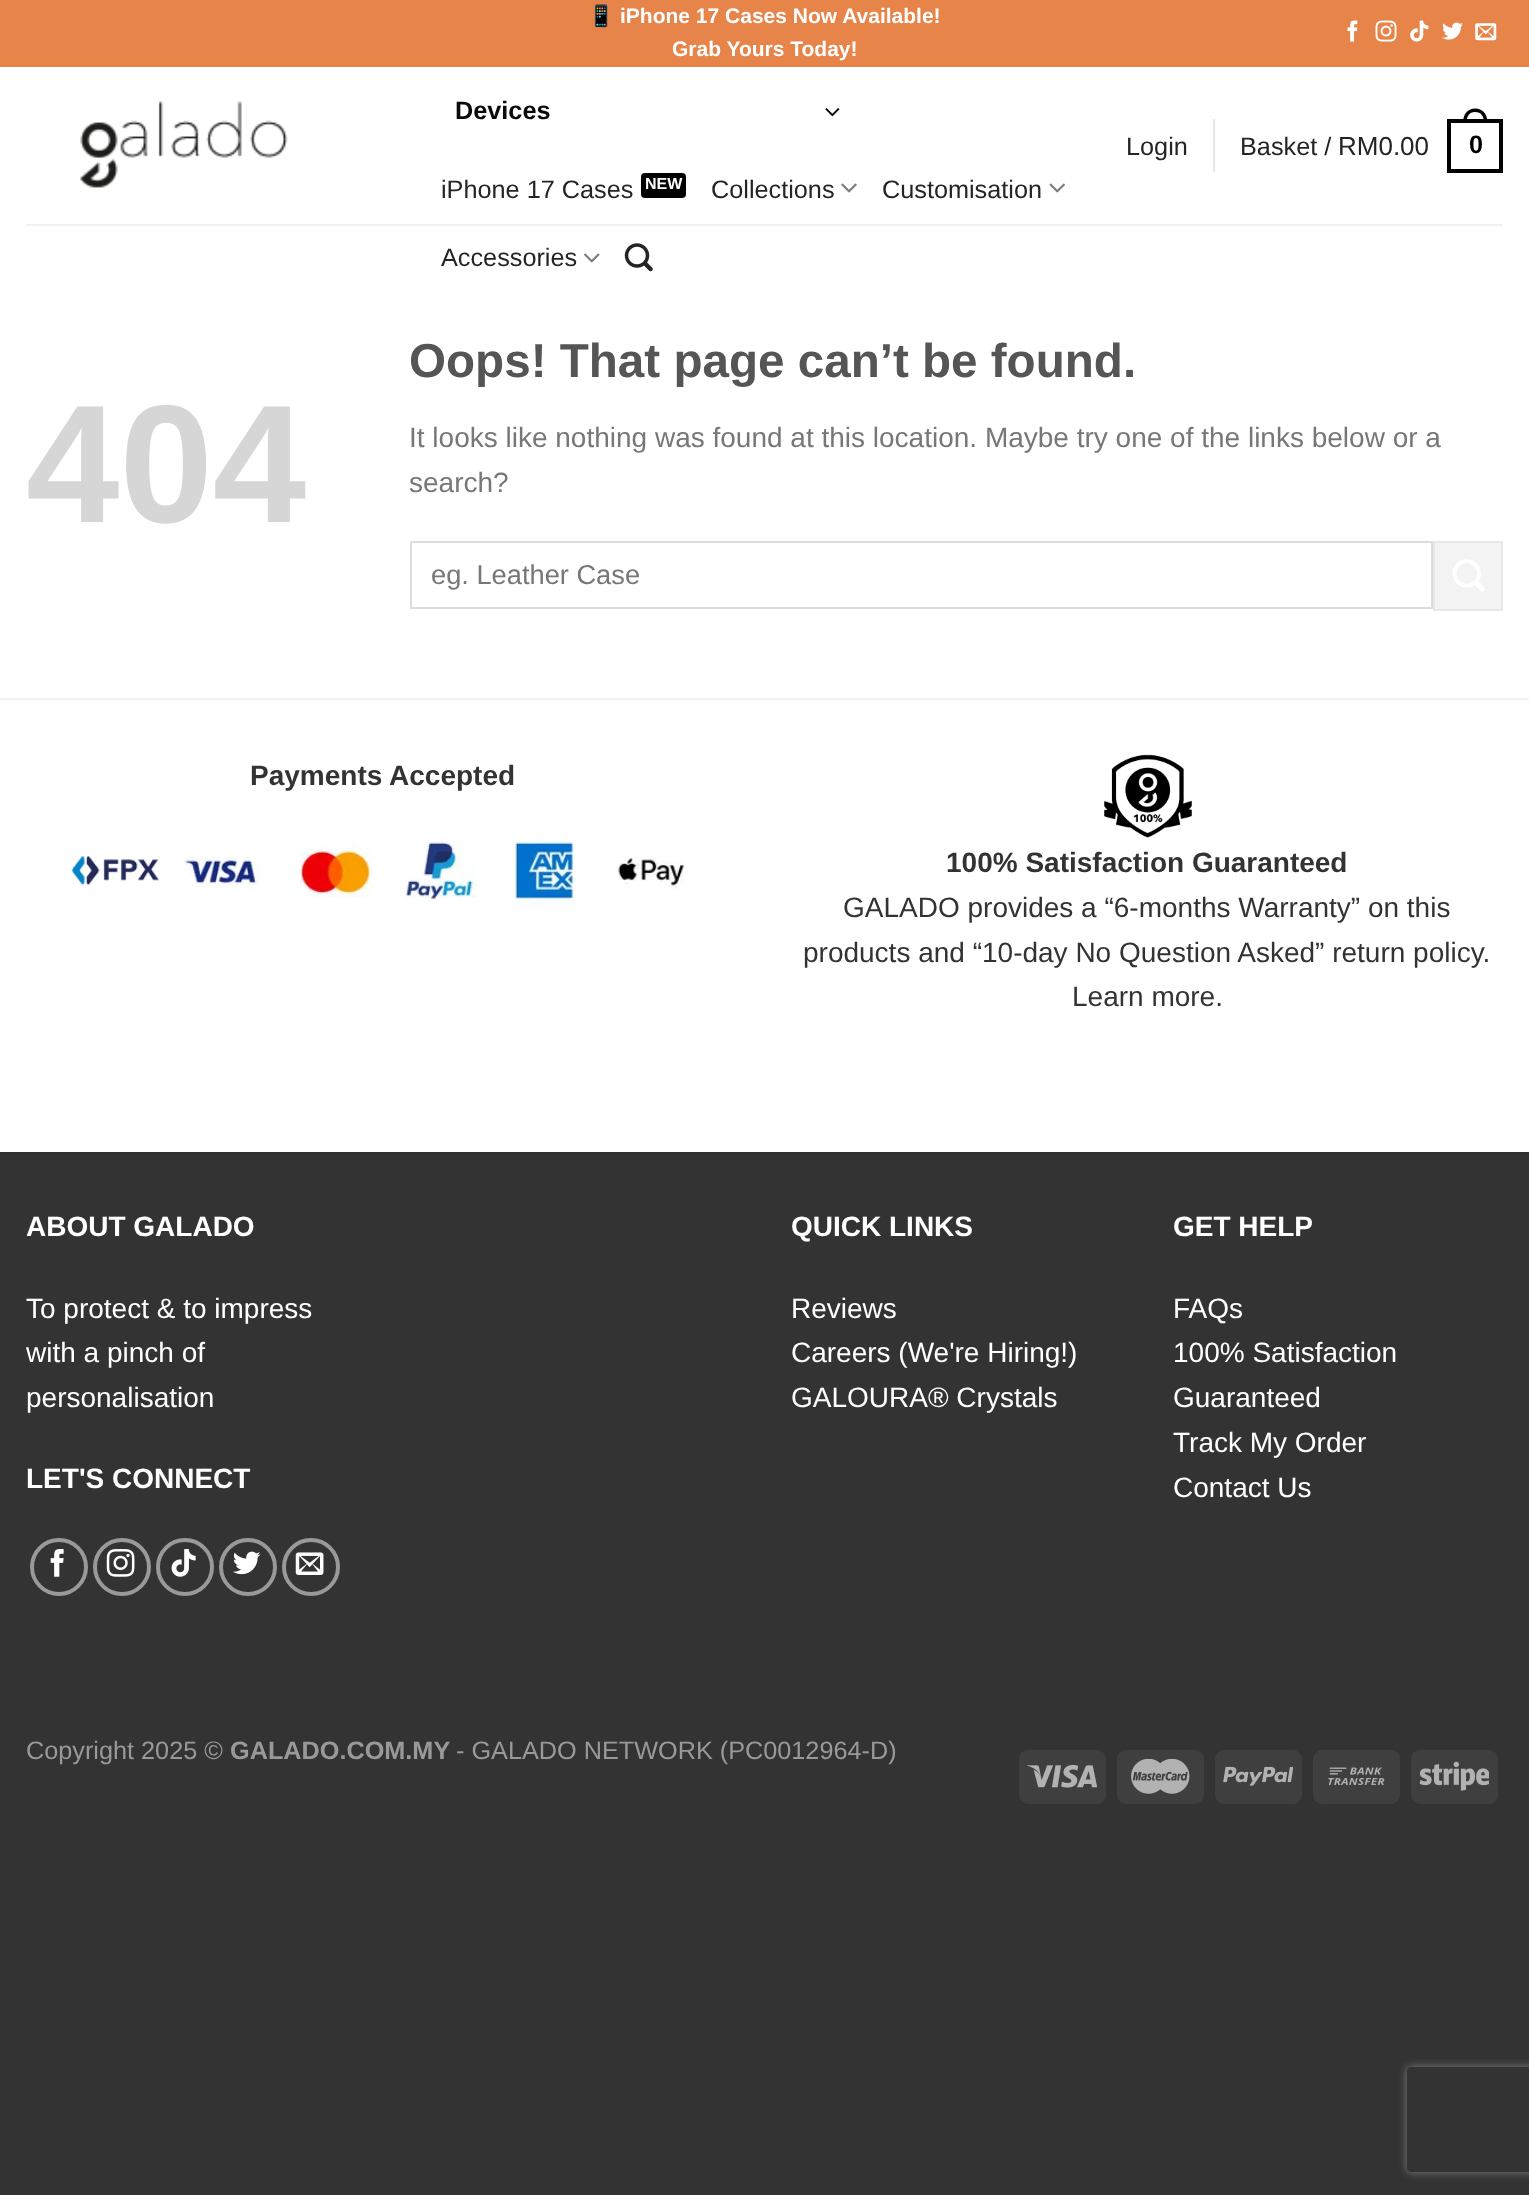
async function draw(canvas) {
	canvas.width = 1529;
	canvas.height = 2195;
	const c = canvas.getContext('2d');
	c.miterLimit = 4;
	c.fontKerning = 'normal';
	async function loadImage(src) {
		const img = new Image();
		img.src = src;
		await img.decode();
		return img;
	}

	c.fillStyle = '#333';
	c.fillRect(0, 0, 1529, 2195);
	c.fillStyle = '#fff';
	c.fillRect(0, 67, 1529, 1085);
	c.fillStyle = '#e68449';
	c.fillRect(0, 0, 1529, 67);
	c.font = 'bold 21px Noto Color Emoji';
	c.fillStyle = '#fff';
	c.fillText('📱', 588, 23);
	c.font = 'bold 21px Liberation Sans';
	c.fillText('iPhone 17 Cases Now Available!', 620, 23);
	c.fillText('Grab Yours Today!', 672, 56);
	c.drawImage(await loadImage('img1.png'), 1347, 20, 11, 22);
	c.drawImage(await loadImage('img2.png'), 1375, 20, 22, 22);
	c.drawImage(await loadImage('img3.png'), 1410, 20, 19, 22);
	c.drawImage(await loadImage('img4.png'), 1442, 22, 21, 18);
	c.drawImage(await loadImage('img5.png'), 1475, 23, 22, 18);
	c.drawImage(await loadImage('img6.png'), 80, 101, 208, 87);
	c.font = 'bold 25.25px Liberation Sans';
	c.fillStyle = '#0a0a0a';
	c.fillText('Devices', 455, 119);
	c.drawImage(await loadImage('img7.png'), 825, 108, 15, 9);
	c.font = '25.25px Liberation Sans';
	c.fillStyle = '#242424';
	c.fillText('iPhone 17 Cases', 441, 198);
	c.fillStyle = '#000';
	c.beginPath();
	c.roundRect(641, 173, 45, 25, 4);
	c.fill();
	c.font = 'bold 16px Liberation Sans';
	c.fillStyle = '#fff';
	c.fillText('NEW', 645, 189);
	c.font = '25.25px Liberation Sans';
	c.fillStyle = '#242424';
	c.fillText('Collections', 711, 198);
	c.drawImage(await loadImage('img8.png'), 841, 183, 16, 10);
	c.fillText('Customisation', 882, 198);
	c.drawImage(await loadImage('img9.png'), 1049, 183, 16, 10);
	c.fillText('Accessories', 441, 266);
	c.drawImage(await loadImage('img10.png'), 584, 253, 16, 10);
	c.drawImage(await loadImage('img11.png'), 624, 243, 29, 29);
	c.fillText('Login', 1126, 155);
	c.fillStyle = '#e6e6e6';
	c.fillRect(1213, 119, 2, 53);
	c.fillStyle = '#242424';
	c.fillText('Basket /', 1240, 155);
	c.font = '26px Liberation Sans';
	c.fillText('RM0.00', 1338, 155);
	c.strokeStyle = '#000';
	c.lineWidth = 4;
	c.strokeRect(1449, 121, 52, 50);
	c.fillStyle = '#000';
	c.beginPath();
	c.moveTo(1475, 108.5);
	c.bezierCurveTo(1483.5, 108.5, 1487.5, 115, 1487.5, 122.5);
	c.lineTo(1463, 122.5);
	c.bezierCurveTo(1463, 115, 1467, 108.5, 1475, 108.5);
	c.closePath();
	c.moveTo(1475, 112);
	c.bezierCurveTo(1481.5, 112, 1484, 117, 1484, 122.5);
	c.lineTo(1466.5, 122.5);
	c.bezierCurveTo(1466.5, 117, 1469, 112, 1475, 112);
	c.closePath();
	c.fill('evenodd');
	c.font = 'bold 25.25px Liberation Sans';
	c.fillText('0', 1469, 153);
	c.fillStyle = '#f1f1f1';
	c.fillRect(26, 224, 1477, 2);
	c.font = 'bold 168px Liberation Sans';
	c.fillStyle = '#d6d6d6';
	c.fillText('404', 26, 522);
	c.font = 'bold 47.6px Liberation Sans';
	c.fillStyle = '#555';
	c.fillText('Oops! That page can’t be found.', 409, 377);
	c.font = '28px Liberation Sans';
	c.fillStyle = '#777';
	c.fillText('It looks like nothing was found at this location. Maybe try one of the links below or a', 409, 447);
	c.fillText('search?', 409, 492);
	c.strokeStyle = '#ddd';
	c.lineWidth = 2;
	c.strokeRect(411, 542, 1021, 66);
	c.font = '27.25px Liberation Sans';
	c.fillText('eg. Leather Case', 431, 584);
	c.fillStyle = '#f3f3f3';
	c.beginPath();
	c.rect(1434, 542, 68, 68);
	c.fill();
	c.strokeStyle = '#e7e7e7';
	c.stroke();
	c.drawImage(await loadImage('img12.png'), 1452, 559, 33, 33);
	c.fillStyle = '#f2f2f2';
	c.fillRect(0, 698, 1529, 2);
	c.font = 'bold 28px Liberation Sans';
	c.fillStyle = '#333';
	c.fillText('Payments Accepted', 250, 785);
	c.drawImage(await loadImage('img13.png'), 72, 856, 87, 30);
	c.drawImage(await loadImage('img14.png'), 184, 856, 76, 34);
	c.drawImage(await loadImage('img15.png'), 300, 844, 73, 54);
	c.drawImage(await loadImage('img16.png'), 405, 839, 73, 63);
	c.drawImage(await loadImage('img17.png'), 514, 840, 61, 67);
	c.drawImage(await loadImage('img18.png'), 616, 857, 68, 32);
	c.drawImage(await loadImage('img19.png'), 1104, 754, 88, 84);
	c.fillText('100% Satisfaction Guaranteed', 946, 872);
	c.font = '28px Liberation Sans';
	for (const [text, x, y] of [
		['GALADO provides a “6-months Warranty” on this', 843, 917],
		['products and “10-day No Question Asked” return policy.', 803, 962],
		['Learn more.', 1072, 1006],
	]) {
		c.fillText(text, x, y);
	}
	c.fillStyle = '#303030';
	c.fillRect(0, 1152, 1529, 2);
	c.font = 'bold 28px Liberation Sans';
	c.fillStyle = '#fff';
	c.fillText('ABOUT GALADO', 26, 1236);
	c.font = '28px Liberation Sans';
	for (const [text, x, y] of [
		['To protect & to impress', 26, 1318],
		['with a pinch of', 26, 1362],
		['personalisation', 26, 1407],
	]) {
		c.fillText(text, x, y);
	}
	c.font = 'bold 28px Liberation Sans';
	c.fillText('LET\'S CONNECT', 26, 1488);
	c.beginPath();
	c.arc(59, 1567, 27, 0, 2 * Math.PI);
	c.strokeStyle = '#999';
	c.lineWidth = 4;
	c.stroke();
	c.drawImage(await loadImage('img20.png'), 50, 1549, 14, 28);
	c.beginPath();
	c.arc(122, 1567, 27, 0, 2 * Math.PI);
	c.stroke();
	c.drawImage(await loadImage('img21.png'), 106, 1549, 29, 28);
	c.beginPath();
	c.arc(185, 1567, 27, 0, 2 * Math.PI);
	c.stroke();
	c.drawImage(await loadImage('img22.png'), 171, 1549, 25, 28);
	c.beginPath();
	c.arc(248, 1567, 27, 0, 2 * Math.PI);
	c.stroke();
	c.drawImage(await loadImage('img23.png'), 233, 1551, 28, 24);
	c.beginPath();
	c.arc(311, 1567, 27, 0, 2 * Math.PI);
	c.stroke();
	c.drawImage(await loadImage('img24.png'), 295, 1552, 29, 23);
	c.fillText('QUICK LINKS', 791, 1236);
	c.font = '28px Liberation Sans';
	for (const [text, x, y] of [
		['Reviews', 791, 1318],
		['Careers (We\'re Hiring!)', 791, 1362],
		['GALOURA® Crystals', 791, 1407],
	]) {
		c.fillText(text, x, y);
	}
	c.font = 'bold 28px Liberation Sans';
	c.fillText('GET HELP', 1173, 1236);
	c.font = '28px Liberation Sans';
	for (const [text, x, y] of [
		['FAQs', 1173, 1318],
		['100% Satisfaction', 1173, 1362],
		['Guaranteed', 1173, 1407],
		['Track My Order', 1173, 1452],
		['Contact Us', 1173, 1497],
	]) {
		c.fillText(text, x, y);
	}
	c.font = '25.25px Liberation Sans';
	c.fillStyle = '#999';
	c.fillText('Copyright 2025 ©', 26, 1759);
	c.font = 'bold 25.25px Liberation Sans';
	c.fillText('GALADO.COM.MY', 230, 1759);
	c.font = '25.25px Liberation Sans';
	c.fillText('- GALADO NETWORK (PC0012964-D)', 456, 1759);
	c.fillStyle = '#3f3f3f';
	c.beginPath();
	c.roundRect(1019, 1750, 87, 54, 9);
	c.fill();
	c.drawImage(await loadImage('img25.png'), 1027, 1764, 70, 24);
	c.beginPath();
	c.roundRect(1117, 1750, 87, 54, 9);
	c.fill();
	c.drawImage(await loadImage('img26.png'), 1131, 1759, 59, 35);
	c.beginPath();
	c.roundRect(1215, 1750, 87, 54, 9);
	c.fill();
	c.drawImage(await loadImage('img27.png'), 1223, 1766, 70, 20);
	c.beginPath();
	c.roundRect(1313, 1750, 87, 54, 9);
	c.fill();
	c.drawImage(await loadImage('img28.png'), 1328, 1767, 57, 18);
	c.beginPath();
	c.roundRect(1411, 1750, 87, 54, 9);
	c.fill();
	c.drawImage(await loadImage('img29.png'), 1419, 1761, 70, 30);
	c.save();
	c.beginPath();
	c.moveTo(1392, 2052);
	c.lineTo(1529, 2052);
	c.lineTo(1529, 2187);
	c.lineTo(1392, 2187);
	c.closePath();
	c.moveTo(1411, 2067);
	c.lineTo(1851, 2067);
	c.bezierCurveTo(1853, 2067, 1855, 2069, 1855, 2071);
	c.lineTo(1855, 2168);
	c.bezierCurveTo(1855, 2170, 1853, 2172, 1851, 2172);
	c.lineTo(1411, 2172);
	c.bezierCurveTo(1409, 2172, 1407, 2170, 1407, 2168);
	c.lineTo(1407, 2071);
	c.bezierCurveTo(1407, 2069, 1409, 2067, 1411, 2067);
	c.closePath();
	c.clip('evenodd');
	c.fillStyle = '#808080';
	c.filter = 'blur(4.5px)';
	c.beginPath();
	c.roundRect(1407, 2067, 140, 105, 4);
	c.fill();
	c.filter = 'none';
	c.restore();
}

draw(document.querySelector('canvas'));
